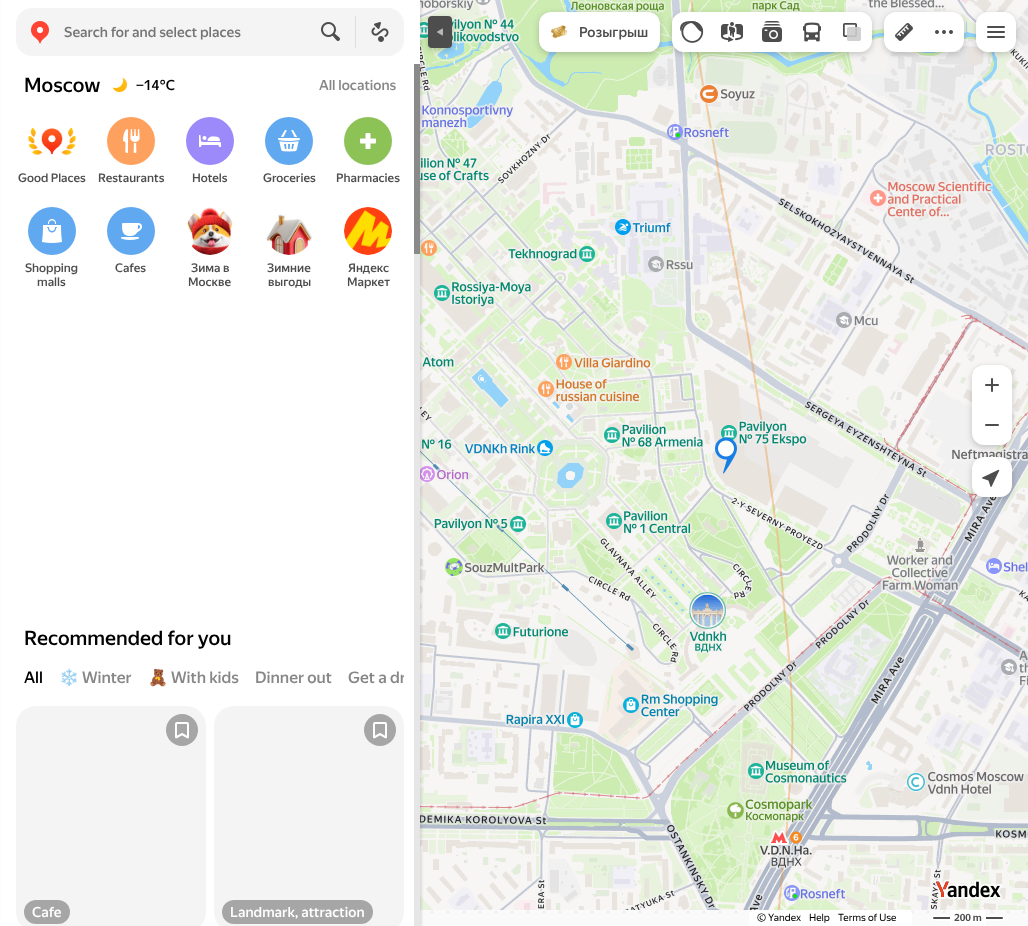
async function draw(canvas) {
	canvas.width = 1028;
	canvas.height = 926;
	const c = canvas.getContext('2d');
	c.miterLimit = 4;
	c.fontKerning = 'normal';
	async function loadImage(src) {
		const img = new Image();
		img.src = src;
		await img.decode();
		return img;
	}

	c.fillStyle = '#fff';
	c.fillRect(0, 0, 1028, 926);
	c.drawImage(await loadImage('img1.png'), 420, 910, 608, 16);
	c.drawImage(await loadImage('img2.png'), 420, 0, 66, 142);
	c.drawImage(await loadImage('img3.png'), 486, 0, 256, 142);
	c.drawImage(await loadImage('img4.png'), 742, 0, 256, 142);
	c.drawImage(await loadImage('img5.png'), 998, 0, 30, 142);
	c.drawImage(await loadImage('img6.png'), 420, 142, 66, 256);
	c.drawImage(await loadImage('img7.png'), 486, 142, 256, 256);
	c.drawImage(await loadImage('img8.png'), 742, 142, 256, 256);
	c.drawImage(await loadImage('img9.png'), 998, 142, 30, 256);
	c.drawImage(await loadImage('img10.png'), 420, 398, 66, 256);
	c.drawImage(await loadImage('img11.png'), 486, 398, 256, 256);
	c.drawImage(await loadImage('img12.png'), 742, 398, 256, 256);
	c.drawImage(await loadImage('img13.png'), 998, 398, 30, 256);
	c.drawImage(await loadImage('img14.png'), 420, 654, 66, 256);
	c.drawImage(await loadImage('img15.png'), 486, 654, 256, 256);
	c.drawImage(await loadImage('img16.png'), 742, 654, 256, 256);
	c.drawImage(await loadImage('img17.png'), 998, 654, 30, 256);
	c.drawImage(await loadImage('img18.png'), 715, 437, 22, 37);
	c.fillStyle = '#0000001a';
	c.filter = 'blur(1px)';
	c.beginPath();
	c.rect(2, 0, 420, 926);
	c.fill();
	c.filter = 'none';
	c.fillStyle = '#00000033';
	c.filter = 'blur(3px)';
	c.beginPath();
	c.roundRect(428, 18, 24, 32, 4);
	c.fill();
	c.filter = 'none';
	c.fillStyle = '#fff';
	c.fillRect(1, 0, 419, 926);
	c.fillStyle = '#f4f4f4';
	c.beginPath();
	c.roundRect(16, 8, 388, 48, 16);
	c.fill();
	c.drawImage(await loadImage('img19.png'), 31, 21, 18, 23);
	c.font = '500 14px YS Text';
	c.fillStyle = '#757575';
	c.fillText('Search for and select places', 64, 37);
	c.drawImage(await loadImage('img20.png'), 321, 22, 19, 19);
	c.fillStyle = '#e0e0e0';
	c.fillRect(355, 16, 1, 32);
	c.drawImage(await loadImage('img21.png'), 371, 22, 18, 20);
	c.fillStyle = '#00000033';
	c.filter = 'blur(3px)';
	c.beginPath();
	c.roundRect(539, 14, 121, 40, 12);
	c.fill();
	c.filter = 'none';
	c.fillStyle = '#fff';
	c.beginPath();
	c.roundRect(539, 12, 121, 40, 12);
	c.fill();
	c.drawImage(await loadImage('img22.png'), 551, 25, 17, 14);
	c.fillStyle = '#4d4d4d';
	c.fillText('Розыгрыш', 579, 37);
	c.fillStyle = '#00000033';
	c.filter = 'blur(3px)';
	c.beginPath();
	c.roundRect(672, 14, 200, 40, 12);
	c.fill();
	c.filter = 'none';
	c.fillStyle = '#fff';
	c.beginPath();
	c.roundRect(672, 12, 40, 40, [12, 0, 0, 12]);
	c.fill();
	c.drawImage(await loadImage('img23.png'), 680, 21, 24, 22);
	c.fillRect(712, 12, 120, 40);
	c.drawImage(await loadImage('img24.png'), 721, 22, 22, 20);
	c.beginPath();
	c.roundRect(832, 12, 40, 40, [0, 12, 12, 0]);
	c.fill();
	c.drawImage(await loadImage('img25.png'), 843, 23, 18, 18);
	c.drawImage(await loadImage('img26.png'), 762, 21, 20, 21);
	c.drawImage(await loadImage('img27.png'), 803, 22, 18, 20);
	c.fillStyle = '#00000033';
	c.filter = 'blur(3px)';
	c.beginPath();
	c.roundRect(884, 14, 80, 40, 12);
	c.fill();
	c.filter = 'none';
	c.fillStyle = '#fff';
	c.beginPath();
	c.roundRect(884, 12, 40, 40, [12, 0, 0, 12]);
	c.fill();
	c.drawImage(await loadImage('img28.png'), 895, 23, 18, 18);
	c.beginPath();
	c.roundRect(924, 12, 40, 40, [0, 12, 12, 0]);
	c.fill();
	c.drawImage(await loadImage('img29.png'), 935, 30, 18, 4);
	c.fillStyle = '#00000033';
	c.filter = 'blur(3px)';
	c.beginPath();
	c.roundRect(976, 14, 40, 40, 12);
	c.fill();
	c.filter = 'none';
	c.fillStyle = '#fff';
	c.beginPath();
	c.roundRect(976, 12, 40, 40, 12);
	c.fill();
	c.drawImage(await loadImage('img30.png'), 987, 26, 18, 12);
	c.fillStyle = '#00000033';
	c.filter = 'blur(3px)';
	c.beginPath();
	c.roundRect(972, 367, 40, 80, 12);
	c.fill();
	c.filter = 'none';
	c.fillStyle = '#fff';
	c.beginPath();
	c.roundRect(972, 365, 40, 40, [12, 12, 0, 0]);
	c.fill();
	c.drawImage(await loadImage('img31.png'), 985, 378, 14, 14);
	c.beginPath();
	c.roundRect(972, 405, 40, 40, [0, 0, 12, 12]);
	c.fill();
	c.drawImage(await loadImage('img32.png'), 985, 424, 14, 2);
	c.fillStyle = '#00000033';
	c.filter = 'blur(3px)';
	c.beginPath();
	c.roundRect(972, 459, 40, 40, 12);
	c.fill();
	c.filter = 'none';
	c.fillStyle = '#fff';
	c.beginPath();
	c.roundRect(972, 457, 40, 40, 12);
	c.fill();
	c.drawImage(await loadImage('img33.png'), 982, 469, 18, 18);
	c.fillStyle = '#4d4d4d';
	c.beginPath();
	c.roundRect(428, 16, 24, 32, 4);
	c.fill();
	c.drawImage(await loadImage('img34.png'), 437, 28, 6, 8);
	c.font = '500 20px YS Text';
	c.fillStyle = '#000';
	c.fillText('Moscow', 24, 92);
	c.drawImage(await loadImage('img35.png'), 112, 77, 15, 15);
	c.font = '500 14px YS Text';
	c.fillText('−14°C', 136, 90);
	c.fillStyle = '#878787';
	c.fillText('All locations', 319, 90);
	c.drawImage(await loadImage('img36.png'), 28, 127, 48, 28);
	c.font = '500 12px YS Text';
	c.fillStyle = '#4d4d4d';
	c.fillText('Good Places', 18, 182);
	c.fillStyle = '#ffa15e';
	c.beginPath();
	c.arc(131, 141, 24, 0, 2 * Math.PI);
	c.fill();
	c.drawImage(await loadImage('img37.png'), 123, 129, 17, 24);
	c.fillStyle = '#4d4d4d';
	c.fillText('Restaurants', 98, 182);
	c.fillStyle = '#9c89fa';
	c.beginPath();
	c.arc(210, 141, 24, 0, 2 * Math.PI);
	c.fill();
	c.drawImage(await loadImage('img38.png'), 199, 135, 22, 12);
	c.fillStyle = '#4d4d4d';
	c.fillText('Hotels', 192, 182);
	c.fillStyle = '#60a8f0';
	c.beginPath();
	c.arc(289, 141, 24, 0, 2 * Math.PI);
	c.fill();
	c.drawImage(await loadImage('img39.png'), 278, 130, 22, 22);
	c.fillStyle = '#4d4d4d';
	c.fillText('Groceries', 263, 182);
	c.fillStyle = '#8dc257';
	c.beginPath();
	c.arc(368, 141, 24, 0, 2 * Math.PI);
	c.fill();
	c.drawImage(await loadImage('img40.png'), 360, 133, 16, 16);
	c.fillStyle = '#4d4d4d';
	c.fillText('Pharmacies', 336, 182);
	c.fillStyle = '#60a8f0';
	c.beginPath();
	c.arc(52, 231, 24, 0, 2 * Math.PI);
	c.fill();
	c.drawImage(await loadImage('img41.png'), 42, 219, 20, 24);
	c.fillStyle = '#4d4d4d';
	c.fillText('Shopping', 25, 272);
	c.fillText('malls', 37, 286);
	c.fillStyle = '#60a8f0';
	c.beginPath();
	c.arc(131, 231, 24, 0, 2 * Math.PI);
	c.fill();
	c.drawImage(await loadImage('img42.png'), 121, 223, 21, 17);
	c.fillStyle = '#4d4d4d';
	c.fillText('Cafes', 115, 272);
	c.drawImage(await loadImage('img43.png'), 187, 207, 46, 48);
	c.fillText('Зима в', 191, 272);
	c.fillText('Москве', 188, 286);
	c.drawImage(await loadImage('img44.png'), 266, 214, 46, 41);
	c.fillText('Зимние', 267, 272);
	c.fillText('выгоды', 268, 286);
	c.drawImage(await loadImage('img45.png'), 344, 207, 48, 48);
	c.fillText('Яндекс', 348, 272);
	c.fillText('Маркет', 347, 286);
	c.font = '500 20px YS Text';
	c.fillStyle = '#000';
	c.fillText('Recommended for you', 24, 645);
	c.font = '500 16px YS Text';
	c.fillText('All', 24, 683);
	c.font = '16px Noto Color Emoji';
	c.fillStyle = '#878787';
	c.fillText('❄️', 59, 683);
	c.font = '500 16px YS Text';
	c.fillText('Winter', 82, 683);
	c.font = '16px Noto Color Emoji';
	c.fillText('🧸', 148, 683);
	c.font = '500 16px YS Text';
	c.fillText('With kids', 171, 683);
	c.fillText('Dinner out', 255, 683);
	c.save();
	c.beginPath();
	c.rect(16, 658, 388, 40);
	c.clip();
	c.fillText('Get a dr', 348, 683);
	c.restore();
	c.fillStyle = '#f4f4f4';
	c.beginPath();
	c.roundRect(16, 706, 190, 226, 20);
	c.fill();
	c.fillStyle = '#a6a6a6';
	c.beginPath();
	c.arc(182, 730, 16, 0, 2 * Math.PI);
	c.fill();
	c.drawImage(await loadImage('img46.png'), 175, 722, 14, 17);
	c.beginPath();
	c.roundRect(24, 900, 46, 24, 12);
	c.fill();
	c.font = '500 14px YS Text';
	c.fillStyle = '#fff';
	c.fillText('Cafe', 32, 917);
	c.fillStyle = '#f4f4f4';
	c.beginPath();
	c.roundRect(214, 706, 190, 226, 20);
	c.fill();
	c.fillStyle = '#a6a6a6';
	c.beginPath();
	c.arc(380, 730, 16, 0, 2 * Math.PI);
	c.fill();
	c.drawImage(await loadImage('img46.png'), 373, 722, 14, 17);
	c.beginPath();
	c.roundRect(222, 900, 151, 24, 12);
	c.fill();
	c.fillStyle = '#fff';
	c.fillText('Landmark, attraction', 230, 917);
	c.fillStyle = '#8a8a8a';
	c.fillRect(414, 64, 6, 190);
	c.fillStyle = '#e6e6e6';
	c.fillRect(414, 254, 6, 672);
	c.drawImage(await loadImage('img47.png'), 934, 879, 69, 21);
	c.fillStyle = '#fff';
	c.beginPath();
	c.roundRect(749, 910, 163, 16, [4, 4, 0, 0]);
	c.fill();
	c.font = '10px YS Text';
	c.fillStyle = '#000';
	for (const [text, x, y] of [
		['© Yandex', 757, 921],
		['Help', 809, 921],
		['Terms of Use', 838, 921],
	]) {
		c.fillText(text, x, y);
	}
	c.fillStyle = '#fdfdfd';
	c.beginPath();
	c.roundRect(931, 915, 74, 6, 3);
	c.fill();
	c.fillStyle = '#4d4d4d';
	c.beginPath();
	c.roundRect(933, 917, 70, 2, 1);
	c.fill();
	c.fillStyle = '#fff';
	c.beginPath();
	c.roundRect(950, 910, 36, 16, [4, 4, 0, 0]);
	c.fill();
	c.font = 'bold 10px YS Text';
	c.fillStyle = '#4d4d4d';
	c.fillText('200 m', 954, 921);
}

draw(document.querySelector('canvas'));
